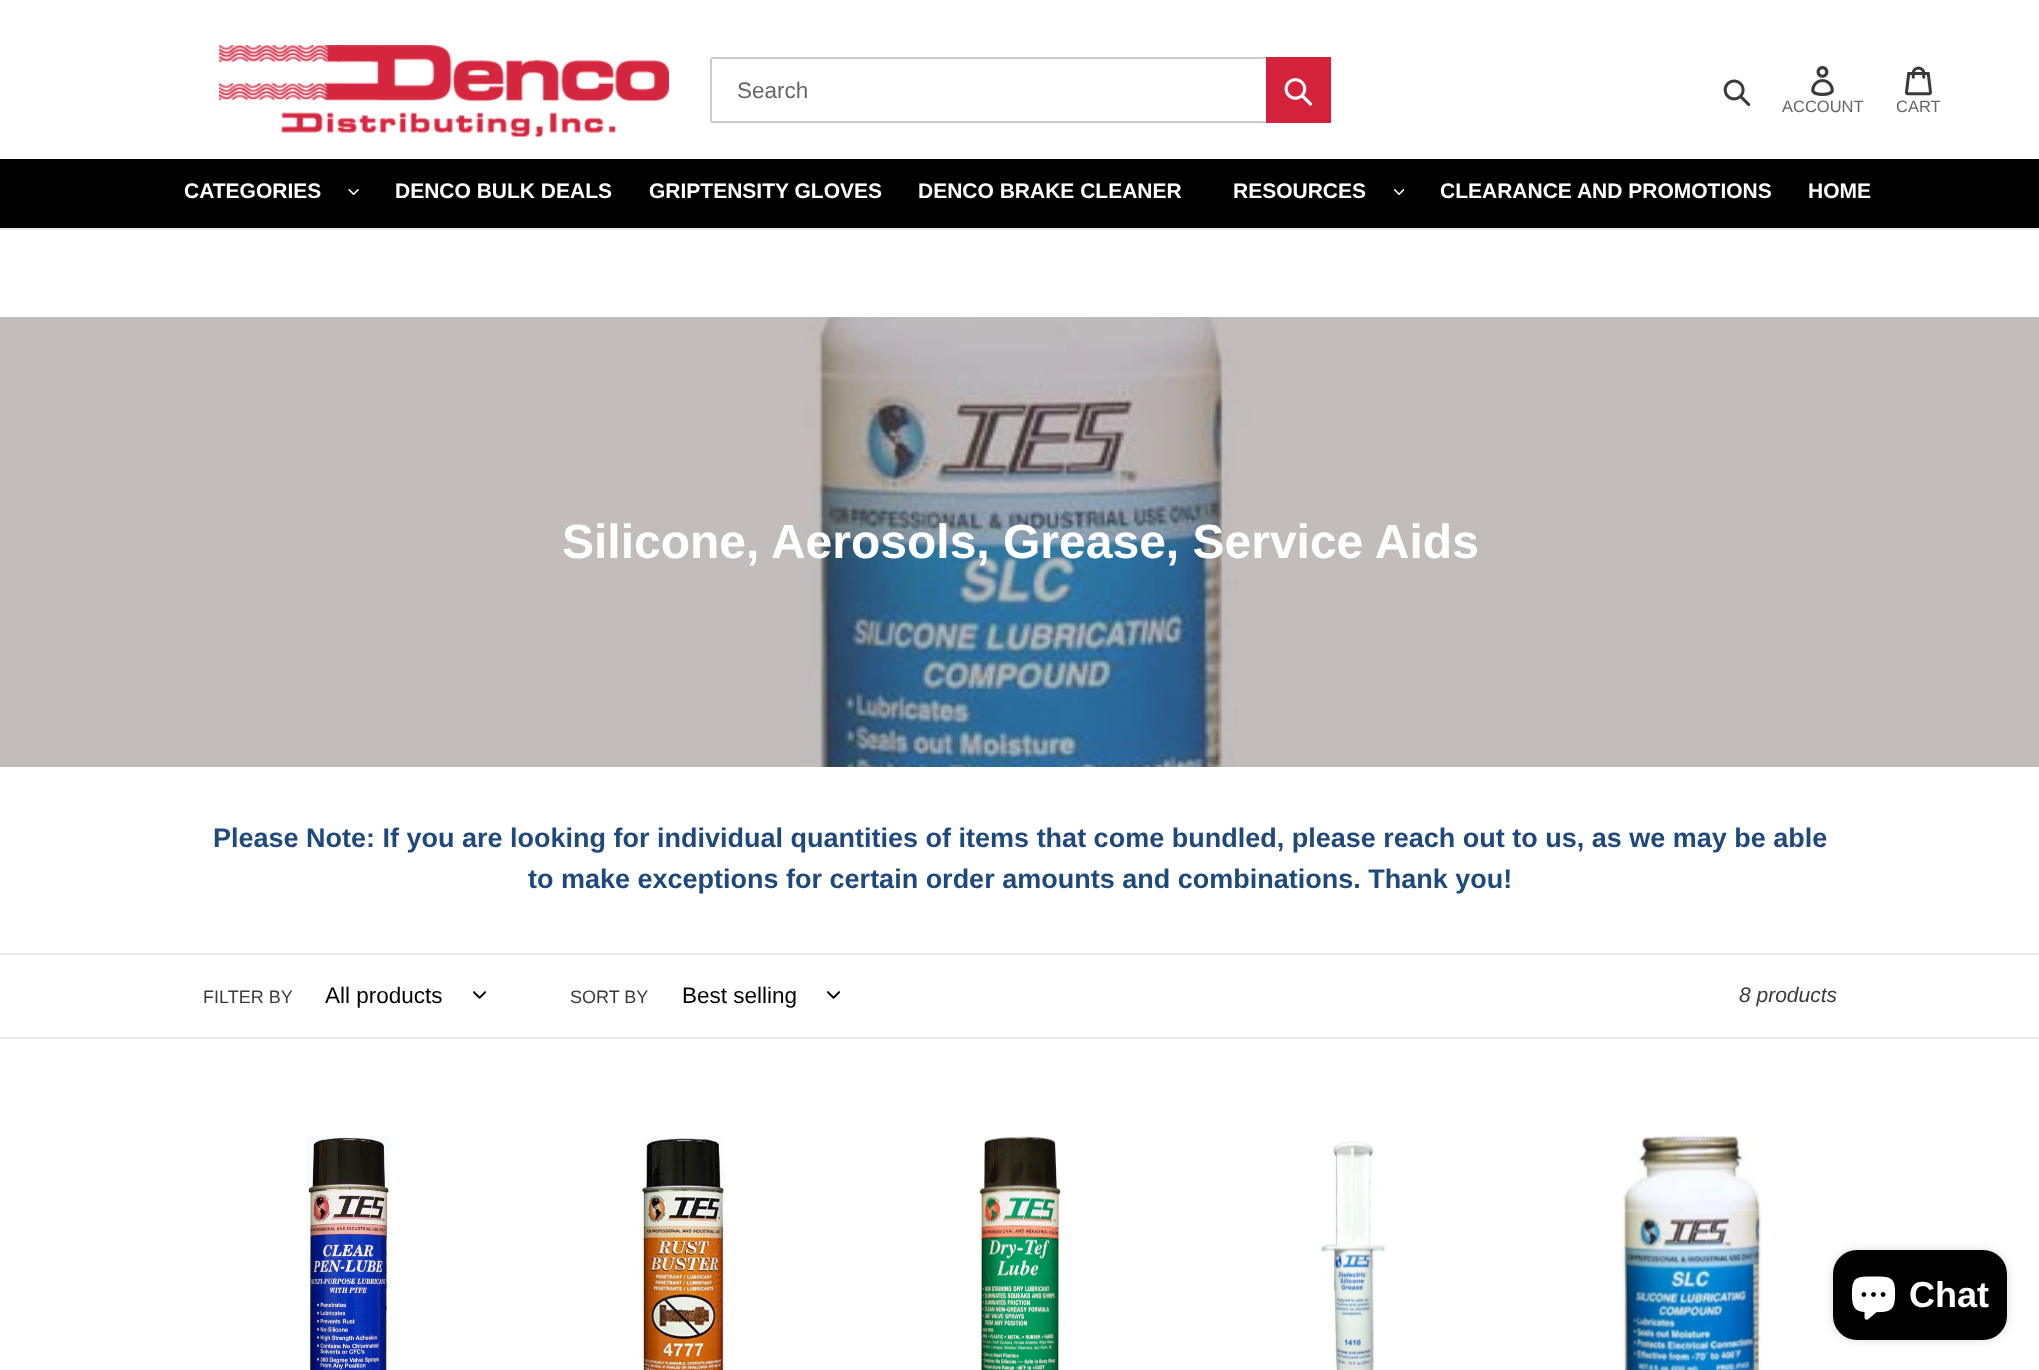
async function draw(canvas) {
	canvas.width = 2039;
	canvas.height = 1370;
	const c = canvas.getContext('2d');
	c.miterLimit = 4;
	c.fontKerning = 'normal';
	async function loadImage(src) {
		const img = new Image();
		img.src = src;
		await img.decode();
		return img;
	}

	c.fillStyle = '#fff';
	c.fillRect(0, 0, 2039, 1370);
	c.fillStyle = '#c3bcbc';
	c.fillRect(0, 317, 2039, 450);
	c.drawImage(await loadImage('img1.png'), 219, 45, 450, 92);
	c.beginPath();
	c.roundRect(711, 58, 619, 64, 2);
	c.strokeStyle = '#ccc';
	c.lineWidth = 2;
	c.stroke();
	c.font = '22.5px Liberation Sans';
	c.fillStyle = '#666';
	c.fillText('Search', 737, 98);
	c.fillStyle = '#d4223a';
	c.fillRect(1266, 57, 65, 66);
	c.drawImage(await loadImage('img2.png'), 1284, 78, 29, 28);
	c.drawImage(await loadImage('img3.png'), 1723, 79, 28, 28);
	c.drawImage(await loadImage('img4.png'), 1811, 66, 23, 30);
	c.font = '16.5px Liberation Sans';
	c.fillStyle = '#666';
	c.fillText('ACCOUNT', 1782, 112);
	c.drawImage(await loadImage('img5.png'), 1905, 66, 27, 30);
	c.fillText('CART', 1896, 112);
	c.fillStyle = '#ebebeb';
	c.fillRect(0, 228, 2039, 2);
	c.fillStyle = '#000';
	c.fillRect(0, 159, 2039, 69);
	c.font = 'bold 21px Liberation Sans';
	c.fillStyle = '#fff';
	c.fillText('CATEGORIES', 184, 198);
	c.drawImage(await loadImage('img6.png'), 348, 189, 11, 6);
	for (const [text, x, y] of [
		['DENCO BULK DEALS', 395, 198],
		['GRIPTENSITY GLOVES', 649, 198],
		['DENCO BRAKE CLEANER', 918, 198],
		['RESOURCES', 1233, 198],
	]) {
		c.fillText(text, x, y);
	}
	c.drawImage(await loadImage('img7.png'), 1394, 189, 10, 6);
	c.fillText('CLEARANCE AND PROMOTIONS', 1440, 198);
	c.fillText('HOME', 1808, 198);
	c.drawImage(await loadImage('img8.png'), 716, 317, 609, 450);
	c.font = 'bold 48px Liberation Sans';
	c.fillText('Silicone, Aerosols, Grease, Service Aids', 562, 558);
	c.font = 'bold 27px Liberation Sans';
	c.fillStyle = '#1f497d';
	c.fillText('Please Note: If you are looking for individual quantities of items that come bundled, please reach out to us, as we may be able', 213, 847);
	c.fillText('to make exceptions for certain order amounts and combinations. Thank you!', 528, 888);
	c.fillStyle = '#ebebeb';
	c.fillRect(0, 953, 2039, 2);
	c.fillRect(0, 1037, 2039, 2);
	c.font = '18px Liberation Sans';
	c.fillStyle = '#3a3a3a';
	c.fillText('FILTER BY', 203, 1003);
	c.font = '22.5px Liberation Sans';
	c.fillStyle = '#000';
	c.fillText('All products', 325, 1003);
	c.drawImage(await loadImage('img9.png'), 473, 991, 13, 8);
	c.font = '18px Liberation Sans';
	c.fillStyle = '#3a3a3a';
	c.fillText('SORT BY', 570, 1003);
	c.font = '22.5px Liberation Sans';
	c.fillStyle = '#000';
	c.fillText('Best selling', 682, 1003);
	c.drawImage(await loadImage('img9.png'), 827, 991, 13, 8);
	c.font = 'italic 21px Liberation Sans';
	c.fillStyle = '#3a3a3a';
	c.fillText('8 products', 1739, 1002);
	c.drawImage(await loadImage('img10.png'), 306, 1135, 84, 235);
	c.drawImage(await loadImage('img11.png'), 639, 1136, 86, 234);
	c.drawImage(await loadImage('img12.png'), 978, 1135, 84, 235);
	c.drawImage(await loadImage('img13.png'), 1321, 1141, 65, 229);
	c.drawImage(await loadImage('img14.png'), 1620, 1135, 142, 235);
	c.fillStyle = '#00000026';
	c.filter = 'blur(4px)';
	c.beginPath();
	c.roundRect(1833, 1250, 174, 90, 24);
	c.fill();
	c.filter = 'none';
	c.fillStyle = '#000';
	c.beginPath();
	c.roundRect(1833, 1250, 174, 90, 24);
	c.fill();
	c.drawImage(await loadImage('img15.png'), 1851, 1276, 45, 44);
	c.font = 'bold 36px Liberation Sans';
	c.fillStyle = '#fff';
	c.fillText('Chat', 1909, 1307);
}

draw(document.querySelector('canvas'));
